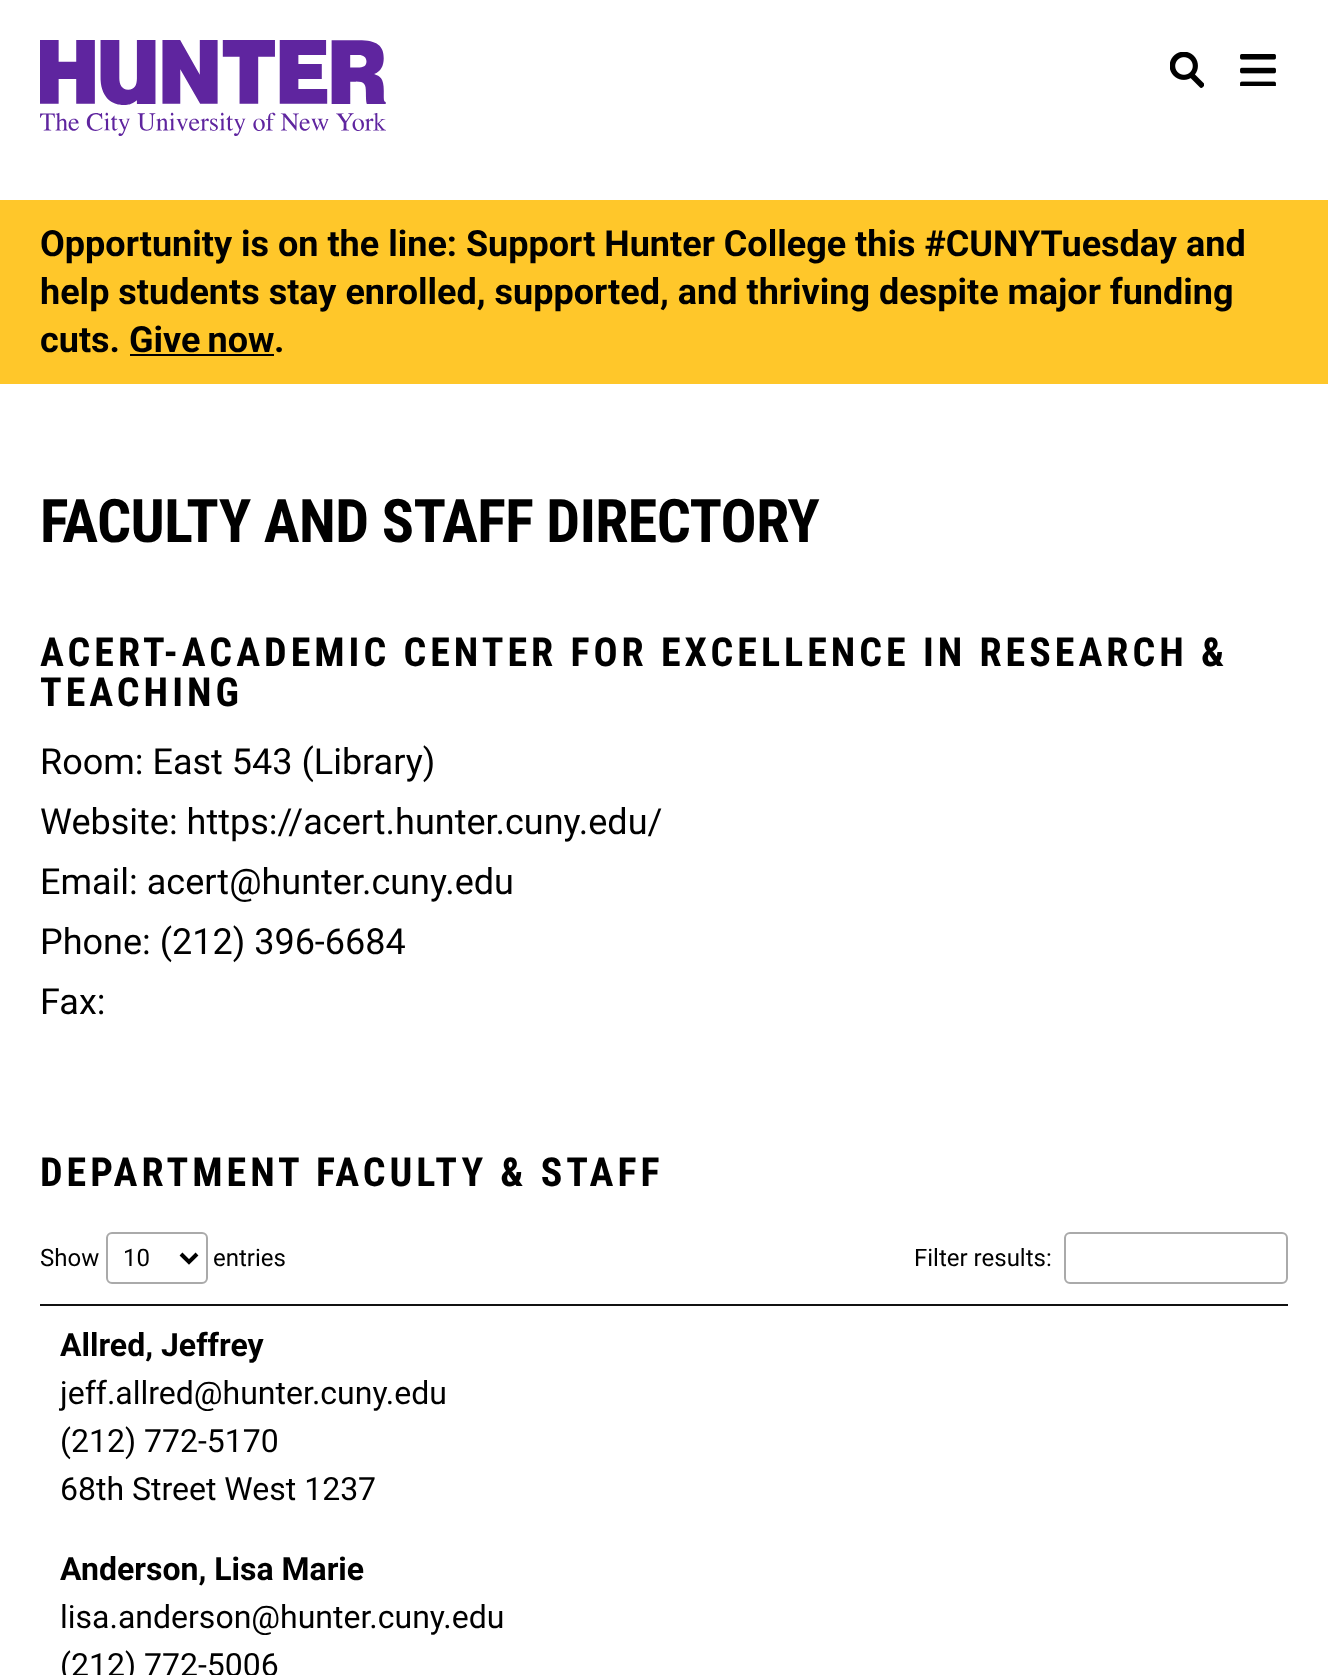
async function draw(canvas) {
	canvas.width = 1328;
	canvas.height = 1675;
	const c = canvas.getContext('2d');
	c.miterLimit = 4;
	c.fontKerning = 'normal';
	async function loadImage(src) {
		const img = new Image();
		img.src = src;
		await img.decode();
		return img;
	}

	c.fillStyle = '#fff';
	c.fillRect(0, 0, 1328, 1675);
	c.drawImage(await loadImage('img1.png'), 40, 40, 346, 96);
	c.drawImage(await loadImage('img2.png'), 1170, 52, 34, 36);
	c.drawImage(await loadImage('img3.png'), 1240, 54, 36, 32);
	c.fillStyle = '#ffc72a';
	c.fillRect(0, 200, 1328, 184);
	c.font = 'bold 36px Roboto';
	c.fillStyle = '#000';
	for (const [text, x, y] of [
		['Opportunity is on the line: Support Hunter College this #CUNYTuesday and', 40, 256],
		['help students stay enrolled, supported, and thriving despite major funding', 40, 304],
		['cuts.', 40, 352],
	]) {
		c.fillText(text, x, y);
	}
	c.wordSpacing = '-2px';
	c.fillText('Give now', 129, 352);
	c.fillRect(130, 354, 144, 2);
	c.wordSpacing = '0px';
	c.fillText('.', 274, 352);
	c.letterSpacing = '-0.6px';
	c.font = 'bold 60px Roboto Condensed';
	c.fillText('FACULTY AND STAFF DIRECTORY', 40, 542);
	c.letterSpacing = '4px';
	c.font = 'bold 40px Roboto Condensed';
	c.fillText('ACERT-ACADEMIC CENTER FOR EXCELLENCE IN RESEARCH &', 40, 666);
	c.fillText('TEACHING', 40, 706);
	c.letterSpacing = '0px';
	c.font = '36px Roboto';
	for (const [text, x, y] of [
		['Room: East 543 (Library)', 40, 774],
		['Website: https://acert.hunter.cuny.edu/', 40, 834],
		['Email: acert@hunter.cuny.edu', 40, 894],
		['Phone: (212) 396-6684', 40, 954],
		['Fax:', 40, 1014],
	]) {
		c.fillText(text, x, y);
	}
	c.letterSpacing = '4px';
	c.font = 'bold 40px Roboto Condensed';
	c.fillText('DEPARTMENT FACULTY & STAFF', 40, 1186);
	c.letterSpacing = '0px';
	c.font = '24px Roboto';
	c.fillText('Show', 40, 1266);
	c.beginPath();
	c.roundRect(107, 1233, 100, 50, 5);
	c.strokeStyle = '#aaa';
	c.lineWidth = 2;
	c.stroke();
	c.beginPath();
	c.moveTo(181, 1254);
	c.lineTo(189, 1262);
	c.lineTo(197, 1254);
	c.strokeStyle = '#000';
	c.lineWidth = 4;
	c.stroke();
	for (const [text, x, y] of [
		['10', 123, 1266],
		['entries', 213, 1266],
		['Filter results:', 914, 1266],
	]) {
		c.fillText(text, x, y);
	}
	c.beginPath();
	c.roundRect(1065, 1233, 222, 50, 5);
	c.strokeStyle = '#aaa';
	c.lineWidth = 2;
	c.stroke();
	c.fillStyle = '#111';
	c.fillRect(40, 1304, 1248, 2);
	c.font = 'bold 32px Roboto';
	c.fillStyle = '#000';
	c.fillText('Allred, Jeffrey', 60, 1356);
	c.font = '32px Roboto';
	for (const [text, x, y] of [
		['jeff.allred@hunter.cuny.edu', 60, 1404],
		['(212) 772-5170', 60, 1452],
		['68th Street West 1237', 60, 1500],
	]) {
		c.fillText(text, x, y);
	}
	c.font = 'bold 32px Roboto';
	c.fillText('Anderson, Lisa Marie', 60, 1580);
	c.font = '32px Roboto';
	c.fillText('lisa.anderson@hunter.cuny.edu', 60, 1628);
	c.fillText('(212) 772-5006', 60, 1676);
}

draw(document.querySelector('canvas'));
